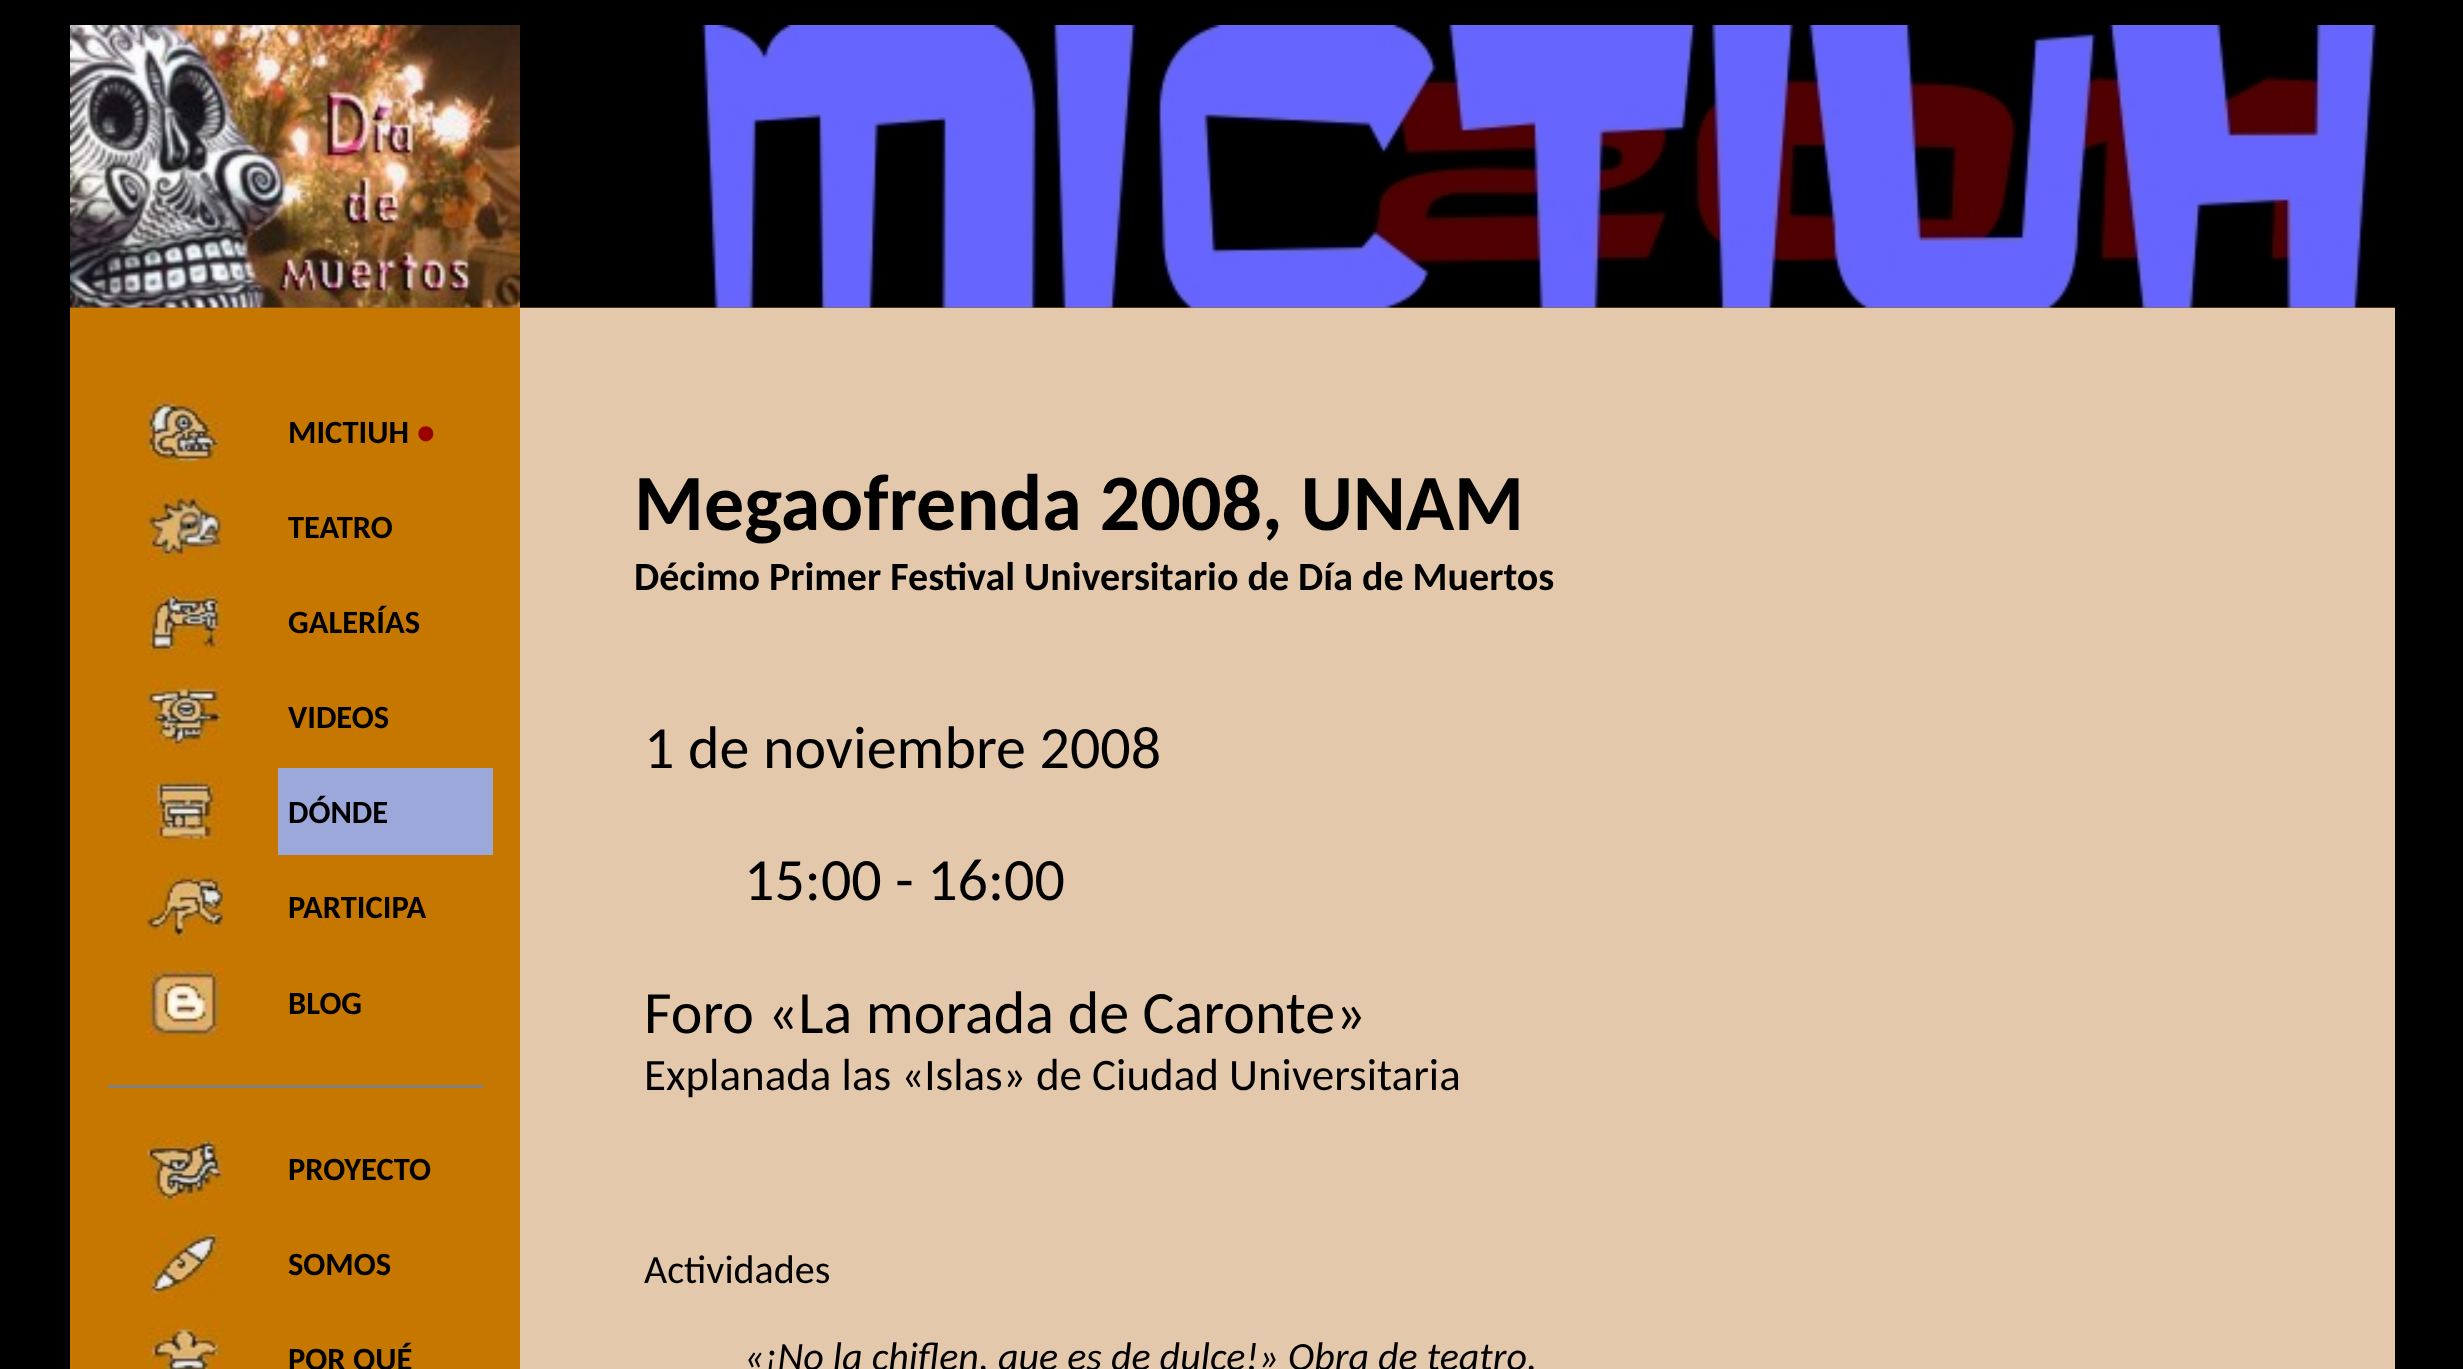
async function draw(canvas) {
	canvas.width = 2463;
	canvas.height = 1369;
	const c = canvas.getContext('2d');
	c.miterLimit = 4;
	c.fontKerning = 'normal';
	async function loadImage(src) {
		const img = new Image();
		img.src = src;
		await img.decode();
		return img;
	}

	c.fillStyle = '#000';
	c.fillRect(0, 0, 2463, 1369);
	c.fillStyle = '#a86500';
	c.fillRect(70, 307, 2325, 1);
	c.drawImage(await loadImage('img1.png'), 70, 25, 450, 283);
	c.drawImage(await loadImage('img2.png'), 520, 25, 1875, 283);
	c.fillStyle = '#c67700';
	c.fillRect(70, 308, 450, 1061);
	c.drawImage(await loadImage('img3.png'), 147, 397, 76, 68);
	c.font = 'bold 32.5px Carlito';
	c.fillStyle = '#000';
	c.fillText('MICTIUH', 288, 443);
	c.font = '32.5px Carlito';
	c.fillStyle = '#900';
	c.fillText('●', 416, 443);
	c.drawImage(await loadImage('img4.png'), 147, 492, 76, 68);
	c.font = 'bold 32.5px Carlito';
	c.fillStyle = '#000';
	c.fillText('TEATRO', 288, 538);
	c.drawImage(await loadImage('img5.png'), 147, 587, 76, 68);
	c.fillText('GALERÍAS', 288, 633);
	c.drawImage(await loadImage('img6.png'), 147, 682, 76, 68);
	c.fillText('VIDEOS', 288, 728);
	c.drawImage(await loadImage('img7.png'), 147, 777, 76, 68);
	c.fillStyle = '#9ca7da';
	c.fillRect(278, 768, 215, 87);
	c.fillStyle = '#000';
	c.fillText('DÓNDE', 288, 823);
	c.drawImage(await loadImage('img8.png'), 147, 872, 76, 68);
	c.fillText('PARTICIPA', 288, 918);
	c.drawImage(await loadImage('img9.png'), 147, 967, 76, 71);
	c.fillText('BLOG', 288, 1014);
	c.fillStyle = '#808080';
	c.fillRect(108, 1085, 375, 3);
	c.drawImage(await loadImage('img10.png'), 147, 1135, 76, 68);
	c.fillStyle = '#000';
	c.fillText('PROYECTO', 288, 1180);
	c.drawImage(await loadImage('img11.png'), 147, 1230, 76, 68);
	c.fillText('SOMOS', 288, 1275);
	c.drawImage(await loadImage('img12.png'), 147, 1325, 76, 44);
	c.fillText('POR QUÉ', 288, 1370);
	c.fillStyle = '#e3c8ac';
	c.fillRect(520, 308, 1875, 1061);
	c.font = 'bold 80px Carlito';
	c.fillStyle = '#000';
	c.fillText('Megaofrenda 2008, UNAM', 634, 530);
	c.font = 'bold 40px Carlito';
	c.fillText('Décimo Primer Festival Universitario de Día de Muertos', 634, 590);
	c.font = '60px Carlito';
	for (const [text, x, y] of [
		['1 de noviembre 2008', 644, 768],
		['15:00 - 16:00', 744, 900],
		['Foro «La morada de Caronte»', 644, 1033],
	]) {
		c.fillText(text, x, y);
	}
	c.font = '45px Carlito';
	c.fillText('Explanada las «Islas» de Ciudad Universitaria', 644, 1090);
	c.font = '40px Carlito';
	c.fillText('Actividades', 644, 1283);
	c.font = 'italic 40px Carlito';
	c.fillText('«¡No la chiflen, que es de dulce!» Obra de teatro.', 744, 1370);
}

draw(document.querySelector('canvas'));
